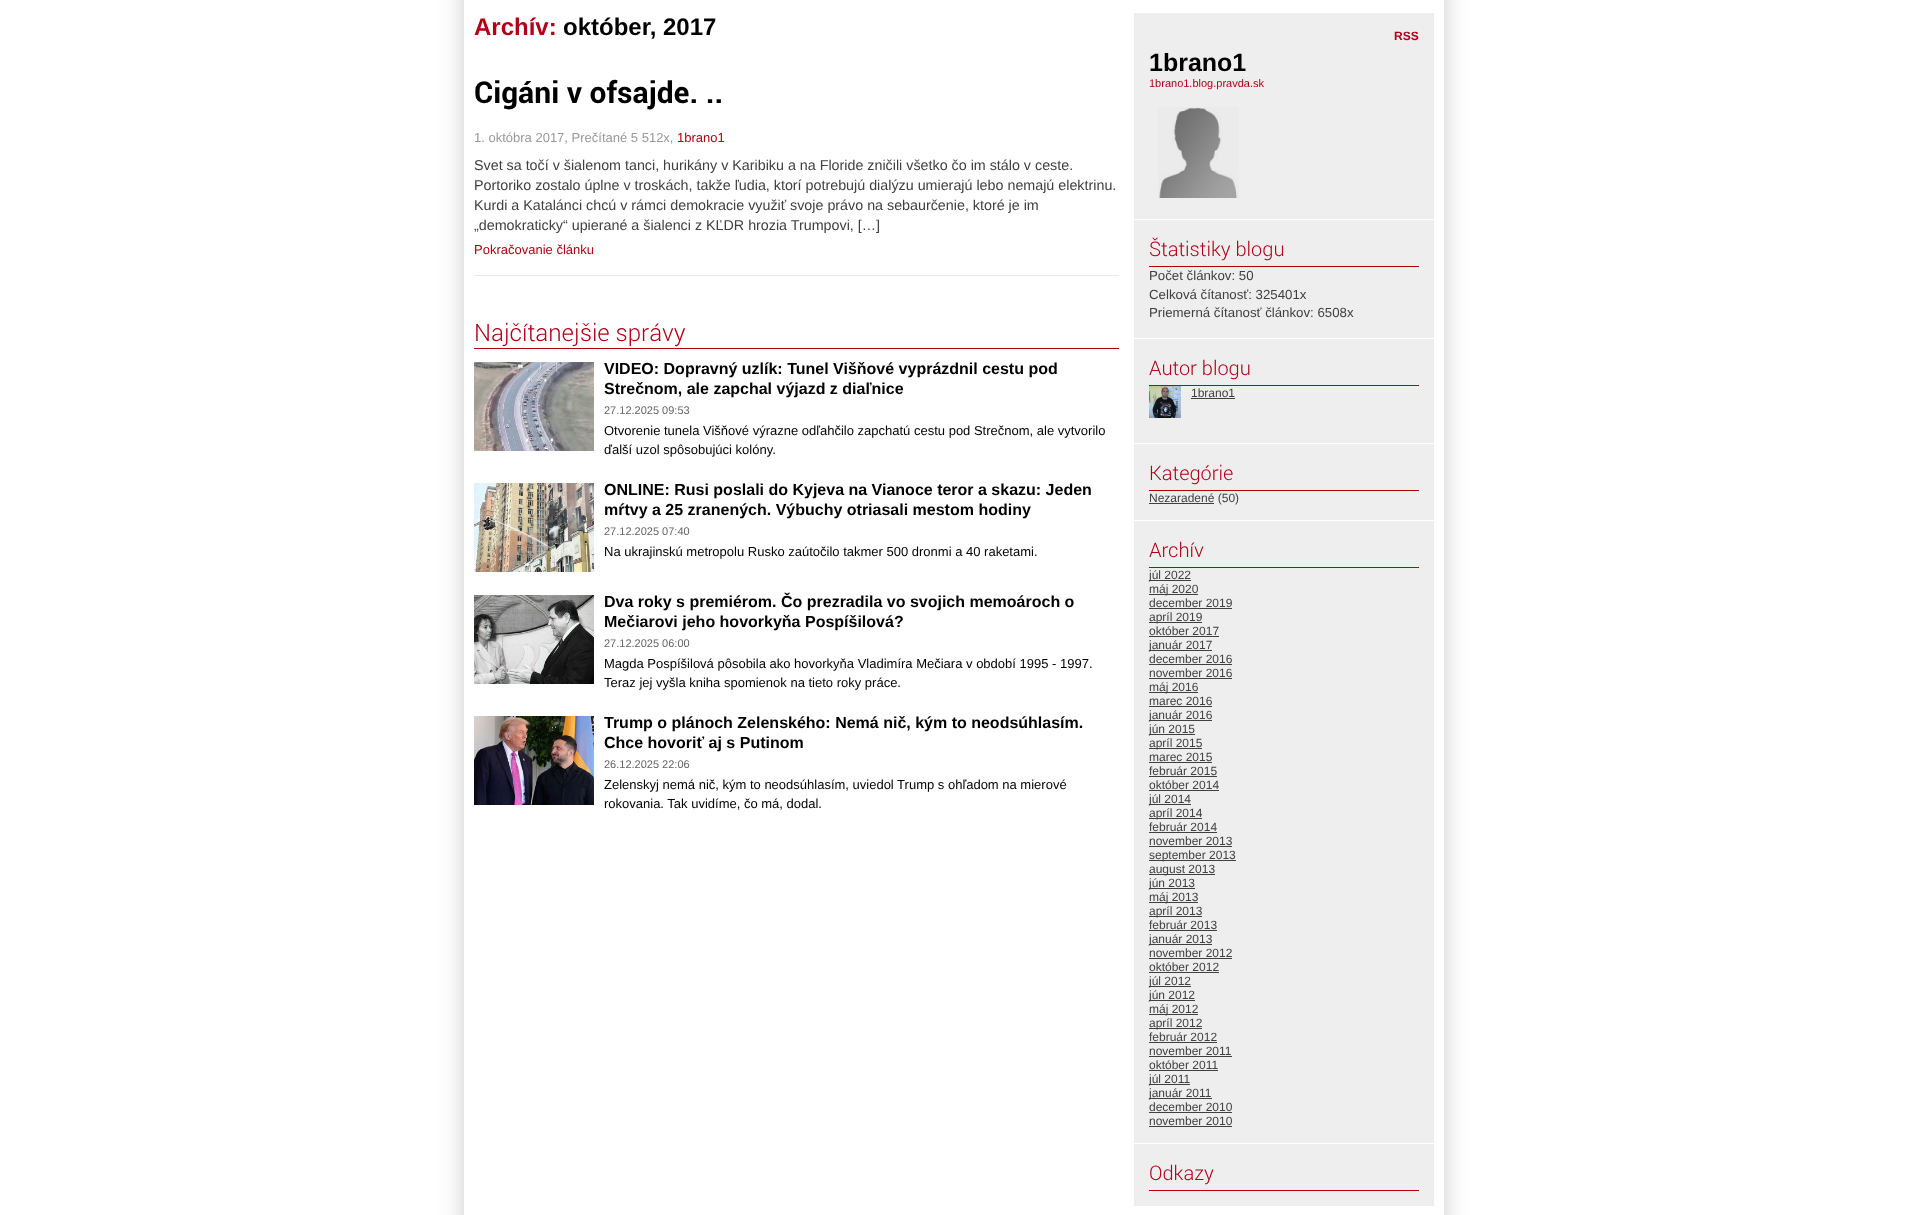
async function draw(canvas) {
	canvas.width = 1908;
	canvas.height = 1215;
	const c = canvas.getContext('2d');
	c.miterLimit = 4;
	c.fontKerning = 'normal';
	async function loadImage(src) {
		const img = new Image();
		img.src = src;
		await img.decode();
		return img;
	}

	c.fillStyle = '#fff';
	c.fillRect(0, 0, 1908, 1215);
	c.save();
	c.beginPath();
	c.moveTo(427, 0);
	c.lineTo(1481, 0);
	c.lineTo(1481, 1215);
	c.lineTo(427, 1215);
	c.closePath();
	c.moveTo(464, -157);
	c.lineTo(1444, -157);
	c.lineTo(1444, 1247);
	c.lineTo(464, 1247);
	c.closePath();
	c.clip('evenodd');
	c.fillStyle = '#32323240';
	c.filter = 'blur(12px)';
	c.beginPath();
	c.rect(464, -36, 980, 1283);
	c.fill();
	c.filter = 'none';
	c.restore();
	c.font = 'bold 24px Liberation Sans';
	c.fillStyle = '#b00117';
	c.fillText('Archív:', 474, 35);
	c.fillStyle = '#000';
	c.fillText('október, 2017', 563, 35);
	c.font = 'bold 30px Roboto';
	c.fillText('Cigáni v ofsajde. ..', 474, 103);
	c.font = '13px Liberation Sans';
	c.fillStyle = '#999';
	c.fillText('1. októbra 2017, Prečítané 5 512x,', 474, 142);
	c.fillStyle = '#b00117';
	c.fillText('1brano1', 677, 142);
	c.font = '14.3px Liberation Sans';
	c.fillStyle = '#404040';
	for (const [text, x, y] of [
		['Svet sa točí v šialenom tanci, hurikány v Karibiku a na Floride zničili všetko čo im stálo v ceste.', 474, 170],
		['Portoriko zostalo úplne v troskách, takže ľudia, ktorí potrebujú dialýzu umierajú lebo nemajú elektrinu.', 474, 190],
		['Kurdi a Katalánci chcú v rámci demokracie využiť svoje právo na sebaurčenie, ktoré je im', 474, 210],
		['„demokraticky“ upierané a šialenci z KĽDR hrozia Trumpovi, […]', 474, 230],
	]) {
		c.fillText(text, x, y);
	}
	c.font = '13px Liberation Sans';
	c.fillStyle = '#b00117';
	c.fillText('Pokračovanie článku', 474, 254);
	c.fillStyle = '#eaeaea';
	c.fillRect(474, 275, 645, 1);
	c.fillStyle = '#b00117';
	c.fillRect(474, 348, 645, 1);
	c.font = '300 24px Roboto';
	c.fillText('Najčítanejšie správy', 474, 341);
	c.drawImage(await loadImage('img1.png'), 474, 362, 120, 89);
	c.font = 'bold 16px Liberation Sans';
	c.fillStyle = '#000';
	c.fillText('VIDEO: Dopravný uzlík: Tunel Višňové vyprázdnil cestu pod', 604, 374);
	c.fillText('Strečnom, ale zapchal výjazd z diaľnice', 604, 394);
	c.font = '11px Liberation Sans';
	c.fillStyle = '#666';
	c.fillText('27.12.2025 09:53', 604, 414);
	c.font = '13px Liberation Sans';
	c.fillStyle = '#000';
	c.fillText('Otvorenie tunela Višňové výrazne odľahčilo zapchatú cestu pod Strečnom, ale vytvorilo', 604, 435);
	c.fillText('ďalší uzol spôsobujúci kolóny.', 604, 454);
	c.drawImage(await loadImage('img2.png'), 474, 483, 120, 89);
	c.font = 'bold 16px Liberation Sans';
	c.fillText('ONLINE: Rusi poslali do Kyjeva na Vianoce teror a skazu: Jeden', 604, 495);
	c.fillText('mŕtvy a 25 zranených. Výbuchy otriasali mestom hodiny', 604, 515);
	c.font = '11px Liberation Sans';
	c.fillStyle = '#666';
	c.fillText('27.12.2025 07:40', 604, 535);
	c.font = '13px Liberation Sans';
	c.fillStyle = '#000';
	c.fillText('Na ukrajinskú metropolu Rusko zaútočilo takmer 500 dronmi a 40 raketami.', 604, 556);
	c.drawImage(await loadImage('img3.png'), 474, 595, 120, 89);
	c.font = 'bold 16px Liberation Sans';
	c.fillText('Dva roky s premiérom. Čo prezradila vo svojich memoároch o', 604, 607);
	c.fillText('Mečiarovi jeho hovorkyňa Pospíšilová?', 604, 627);
	c.font = '11px Liberation Sans';
	c.fillStyle = '#666';
	c.fillText('27.12.2025 06:00', 604, 647);
	c.font = '13px Liberation Sans';
	c.fillStyle = '#000';
	c.fillText('Magda Pospíšilová pôsobila ako hovorkyňa Vladimíra Mečiara v období 1995 - 1997.', 604, 668);
	c.fillText('Teraz jej vyšla kniha spomienok na tieto roky práce.', 604, 687);
	c.drawImage(await loadImage('img4.png'), 474, 716, 120, 89);
	c.font = 'bold 16px Liberation Sans';
	c.fillText('Trump o plánoch Zelenského: Nemá nič, kým to neodsúhlasím.', 604, 728);
	c.fillText('Chce hovoriť aj s Putinom', 604, 748);
	c.font = '11px Liberation Sans';
	c.fillStyle = '#666';
	c.fillText('26.12.2025 22:06', 604, 768);
	c.font = '13px Liberation Sans';
	c.fillStyle = '#000';
	c.fillText('Zelenskyj nemá nič, kým to neodsúhlasím, uviedol Trump s ohľadom na mierové', 604, 789);
	c.fillText('rokovania. Tak uvidíme, čo má, dodal.', 604, 808);
	c.fillStyle = '#eee';
	c.fillRect(1134, 13, 300, 206);
	c.font = 'bold 12px Liberation Sans';
	c.fillStyle = '#b00117';
	c.fillText('RSS', 1394, 40);
	c.font = 'bold 25px Liberation Sans';
	c.fillStyle = '#000';
	c.fillText('1brano1', 1149, 71);
	c.font = '11px Liberation Sans';
	c.fillStyle = '#b00117';
	c.fillText('1brano1.blog.pravda.sk', 1149, 87);
	c.drawImage(await loadImage('img5.png'), 1158, 107, 81, 91);
	c.fillStyle = '#eee';
	c.fillRect(1134, 220, 300, 118);
	c.fillStyle = '#b00117';
	c.fillRect(1149, 266, 270, 1);
	c.font = '300 20px Roboto';
	c.fillText('Štatistiky blogu', 1149, 256);
	c.font = '13.25px Liberation Sans';
	c.fillStyle = '#404040';
	for (const [text, x, y] of [
		['Počet článkov: 50', 1149, 280],
		['Celková čítanosť: 325401x', 1149, 299],
		['Priemerná čítanosť článkov: 6508x', 1149, 317],
	]) {
		c.fillText(text, x, y);
	}
	c.fillStyle = '#eee';
	c.fillRect(1134, 339, 300, 104);
	c.fillStyle = '#b00117';
	c.fillRect(1149, 385, 270, 1);
	c.font = '300 20px Roboto';
	c.fillText('Autor blogu', 1149, 375);
	c.drawImage(await loadImage('img6.png'), 1149, 386, 32, 32);
	c.font = '12px Liberation Sans';
	c.fillStyle = '#404040';
	c.fillText('1brano1', 1191, 397);
	for (const [x, y, w, h, color] of [
		[1191, 398, 44, 1, '#404040'],
		[1134, 444, 300, 76, '#eee'],
		[1149, 490, 270, 1, '#b00117'],
	]) {
		c.fillStyle = color;
		c.fillRect(x, y, w, h);
	}
	c.font = '300 20px Roboto';
	c.fillText('Kategórie', 1149, 480);
	c.fillStyle = '#404040';
	c.fillRect(1149, 503, 65, 1);
	c.font = '12px Liberation Sans';
	c.fillText('Nezaradené (50)', 1149, 502);
	c.fillStyle = '#eee';
	c.fillRect(1134, 521, 300, 622);
	c.fillStyle = '#b00117';
	c.fillRect(1149, 567, 270, 1);
	c.font = '300 20px Roboto';
	c.fillText('Archív', 1149, 557);
	c.fillStyle = '#404040';
	c.fillRect(1149, 580, 42, 1);
	c.font = '12px Liberation Sans';
	c.fillText('júl 2022', 1149, 579);
	c.fillRect(1149, 594, 49, 1);
	c.fillText('máj 2020', 1149, 593);
	c.fillText('december 2019', 1149, 607);
	c.fillRect(1149, 608, 83, 1);
	c.fillRect(1149, 622, 53, 1);
	c.fillText('apríl 2019', 1149, 621);
	c.fillText('október 2017', 1149, 635);
	c.fillRect(1149, 636, 70, 1);
	c.fillRect(1149, 650, 63, 1);
	c.fillText('január 2017', 1149, 649);
	c.fillText('december 2016', 1149, 663);
	c.fillRect(1149, 664, 83, 1);
	c.fillText('november 2016', 1149, 677);
	c.fillRect(1149, 678, 83, 1);
	c.fillRect(1149, 692, 49, 1);
	c.fillText('máj 2016', 1149, 691);
	c.fillText('marec 2016', 1149, 705);
	c.fillRect(1149, 706, 63, 1);
	c.fillRect(1149, 720, 63, 1);
	c.fillText('január 2016', 1149, 719);
	c.fillRect(1149, 734, 46, 1);
	c.fillText('jún 2015', 1149, 733);
	c.fillRect(1149, 748, 53, 1);
	c.fillText('apríl 2015', 1149, 747);
	c.fillText('marec 2015', 1149, 761);
	c.fillRect(1149, 762, 63, 1);
	c.fillText('február 2015', 1149, 775);
	c.fillRect(1149, 776, 68, 1);
	c.fillText('október 2014', 1149, 789);
	c.fillRect(1149, 790, 70, 1);
	c.fillRect(1149, 804, 42, 1);
	c.fillText('júl 2014', 1149, 803);
	c.fillRect(1149, 818, 53, 1);
	c.fillText('apríl 2014', 1149, 817);
	c.fillText('február 2014', 1149, 831);
	c.fillRect(1149, 832, 68, 1);
	c.fillText('november 2013', 1149, 845);
	c.fillRect(1149, 846, 83, 1);
	c.fillRect(1149, 860, 87, 1);
	c.fillText('september 2013', 1149, 859);
	c.fillRect(1149, 874, 66, 1);
	c.fillText('august 2013', 1149, 873);
	c.fillRect(1149, 888, 46, 1);
	c.fillText('jún 2013', 1149, 887);
	c.fillRect(1149, 902, 49, 1);
	c.fillText('máj 2013', 1149, 901);
	c.fillRect(1149, 916, 53, 1);
	c.fillText('apríl 2013', 1149, 915);
	c.fillText('február 2013', 1149, 929);
	c.fillRect(1149, 930, 68, 1);
	c.fillRect(1149, 944, 63, 1);
	c.fillText('január 2013', 1149, 943);
	c.fillText('november 2012', 1149, 957);
	c.fillRect(1149, 958, 83, 1);
	c.fillText('október 2012', 1149, 971);
	c.fillRect(1149, 972, 70, 1);
	c.fillRect(1149, 986, 42, 1);
	c.fillText('júl 2012', 1149, 985);
	c.fillRect(1149, 1000, 46, 1);
	c.fillText('jún 2012', 1149, 999);
	c.fillRect(1149, 1014, 49, 1);
	c.fillText('máj 2012', 1149, 1013);
	c.fillRect(1149, 1028, 53, 1);
	c.fillText('apríl 2012', 1149, 1027);
	c.fillText('február 2012', 1149, 1041);
	c.fillRect(1149, 1042, 68, 1);
	c.fillText('november 2011', 1149, 1055);
	c.fillRect(1149, 1056, 83, 1);
	c.fillText('október 2011', 1149, 1069);
	c.fillRect(1149, 1070, 69, 1);
	c.fillRect(1149, 1084, 41, 1);
	c.fillText('júl 2011', 1149, 1083);
	c.fillRect(1149, 1098, 63, 1);
	c.fillText('január 2011', 1149, 1097);
	c.fillText('december 2010', 1149, 1111);
	c.fillRect(1149, 1112, 83, 1);
	c.fillText('november 2010', 1149, 1125);
	for (const [x, y, w, h, color] of [
		[1149, 1126, 83, 1, '#404040'],
		[1134, 1144, 300, 62, '#eee'],
		[1149, 1190, 270, 1, '#b00117'],
	]) {
		c.fillStyle = color;
		c.fillRect(x, y, w, h);
	}
	c.font = '300 20px Roboto';
	c.fillText('Odkazy', 1149, 1180);
}

draw(document.querySelector('canvas'));
